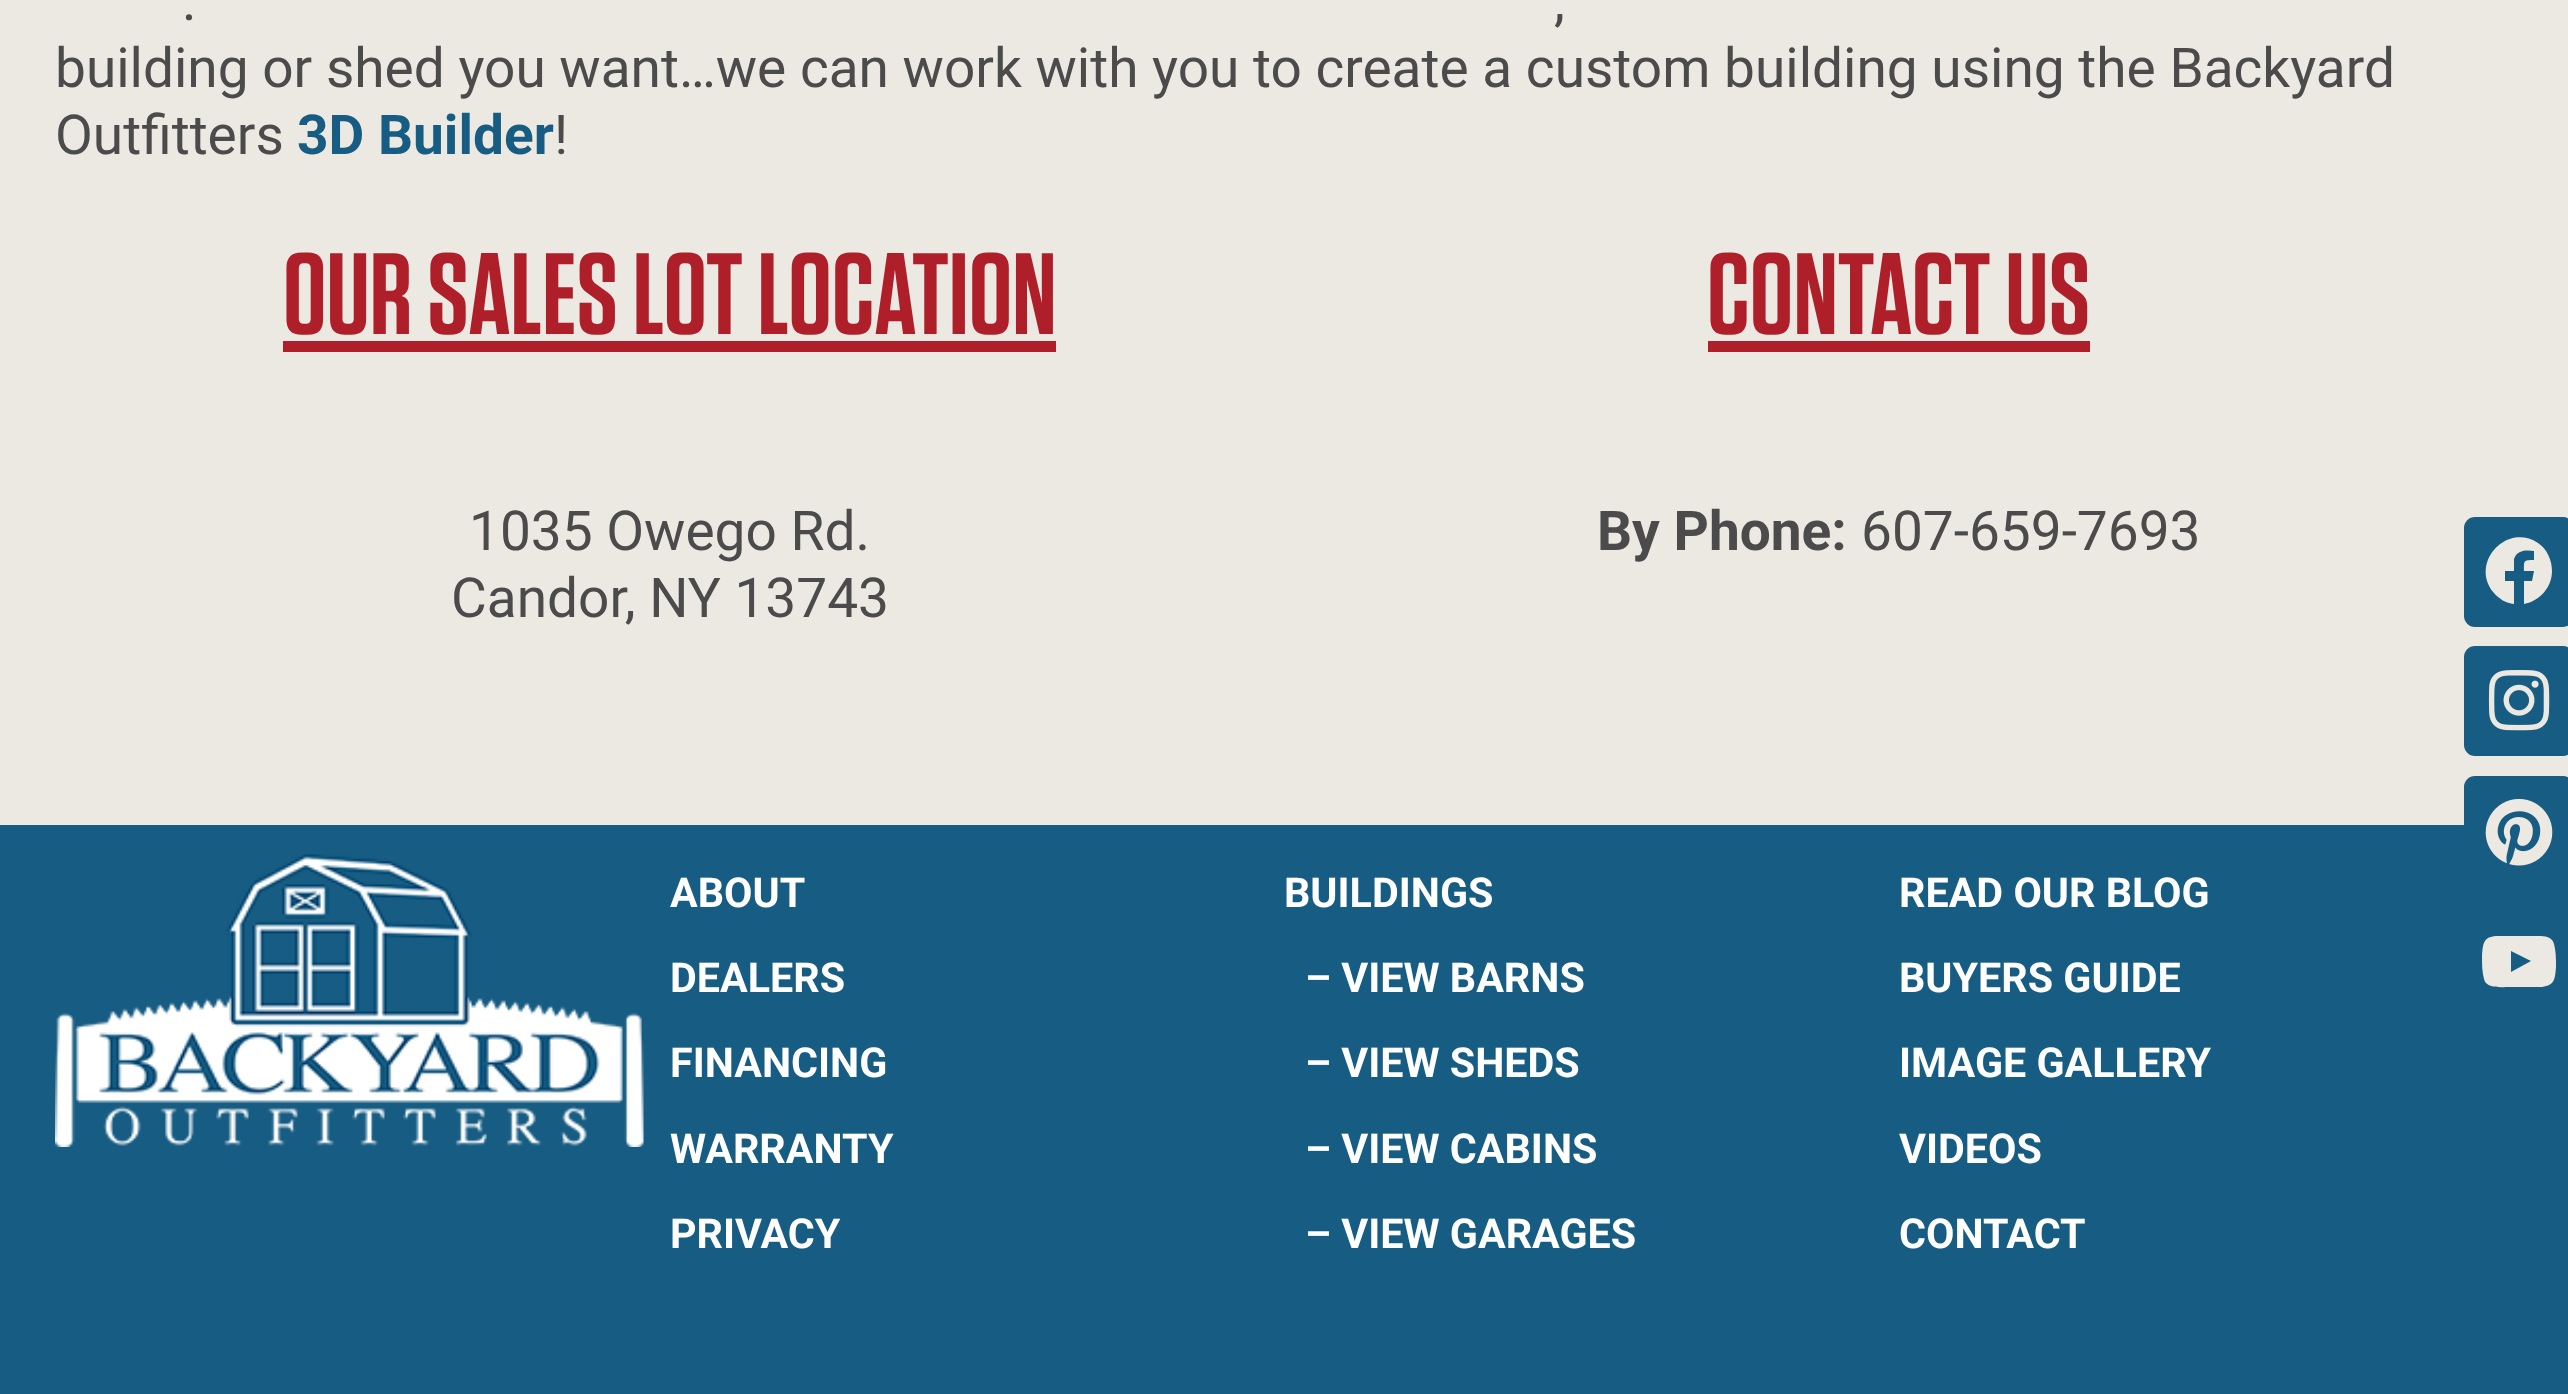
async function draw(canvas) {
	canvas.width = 2568;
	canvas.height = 1394;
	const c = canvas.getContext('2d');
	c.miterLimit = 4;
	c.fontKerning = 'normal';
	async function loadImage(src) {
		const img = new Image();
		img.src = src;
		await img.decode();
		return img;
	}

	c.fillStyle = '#ece9e3';
	c.fillRect(0, 0, 2568, 1394);
	c.font = '55px Roboto';
	c.fillStyle = '#4b4b4b';
	for (const [text, x, y] of [
		['.', 182, 20],
		[',', 1554, 20],
		['building or shed you want…we can work with you to create a custom building using the Backyard', 55, 87],
		['Outfitters', 55, 154],
	]) {
		c.fillText(text, x, y);
	}
	c.font = 'bold 55px Roboto';
	c.fillStyle = '#175c82';
	c.fillText('3D Builder', 297, 154);
	c.font = '55px Roboto';
	c.fillStyle = '#4b4b4b';
	c.fillText('!', 554, 154);
	c.font = '600 115.5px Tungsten';
	c.fillStyle = '#af1f29';
	c.fillText('OUR SALES LOT LOCATION', 283, 334);
	c.fillRect(283, 341, 773, 11);
	c.font = '55px Roboto';
	c.fillStyle = '#4b4b4b';
	c.fillText('1035 Owego Rd.', 469, 550);
	c.fillText('Candor, NY 13743', 451, 617);
	c.font = '600 115.5px Tungsten';
	c.fillStyle = '#af1f29';
	c.fillText('CONTACT US', 1707, 334);
	c.fillRect(1708, 341, 382, 11);
	c.font = 'bold 55px Roboto';
	c.fillStyle = '#4b4b4b';
	c.fillText('By Phone:', 1597, 550);
	c.font = '55px Roboto';
	c.fillText('607-659-7693', 1861, 550);
	c.fillStyle = '#175c82';
	c.beginPath();
	c.roundRect(2464, 517, 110, 110, 11);
	c.fill();
	c.fillStyle = '#ece9e3';
	c.beginPath();
	c.moveTo(2552, 571);
	c.bezierCurveTo(2552, 587, 2540, 601, 2524, 604);
	c.lineTo(2524, 581);
	c.lineTo(2532, 581);
	c.lineTo(2534, 571);
	c.lineTo(2524, 571);
	c.bezierCurveTo(2524, 561, 2523, 560, 2534, 560);
	c.lineTo(2534, 551);
	c.bezierCurveTo(2526, 550, 2517, 550, 2514, 559);
	c.lineTo(2514, 571);
	c.lineTo(2505, 571);
	c.lineTo(2505, 581);
	c.lineTo(2514, 581);
	c.lineTo(2514, 604);
	c.bezierCurveTo(2506, 603, 2499, 599, 2494, 593);
	c.bezierCurveTo(2469, 564, 2506, 522, 2538, 543);
	c.bezierCurveTo(2547, 549, 2552, 560, 2552, 571);
	c.closePath();
	c.fill();
	c.fillStyle = '#175c82';
	c.beginPath();
	c.roundRect(2464, 646, 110, 110, 11);
	c.fill();
	c.drawImage(await loadImage('img1.png'), 2488, 670, 62, 61);
	c.fillRect(0, 825, 2568, 569);
	c.beginPath();
	c.roundRect(2464, 776, 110, 110, 11);
	c.fill();
	c.drawImage(await loadImage('img2.png'), 2485, 798, 68, 68);
	c.fillStyle = '#ece9e3';
	c.beginPath();
	c.moveTo(2554, 944);
	c.bezierCurveTo(2556, 951, 2556, 959, 2556, 967);
	c.bezierCurveTo(2555, 979, 2555, 985, 2542, 987);
	c.lineTo(2509, 987);
	c.bezierCurveTo(2502, 987, 2486, 989, 2484, 979);
	c.bezierCurveTo(2482, 972, 2482, 964, 2482, 956);
	c.bezierCurveTo(2483, 944, 2483, 937, 2496, 936);
	c.lineTo(2513, 936);
	c.lineTo(2534, 936);
	c.bezierCurveTo(2541, 936, 2552, 935, 2554, 944);
	c.closePath();
	c.moveTo(2511, 972);
	c.lineTo(2531, 961);
	c.lineTo(2511, 951);
	c.closePath();
	c.fill();
	c.drawImage(await loadImage('img3.png'), 55, 854, 589, 293);
	c.font = 'bold 41.25px Roboto';
	c.fillStyle = '#fff';
	for (const [text, x, y] of [
		['ABOUT', 670, 907],
		['DEALERS', 670, 992],
		['FINANCING', 670, 1077],
		['WARRANTY', 670, 1163],
		['PRIVACY', 670, 1248],
		['BUILDINGS', 1284, 907],
		['– VIEW BARNS', 1305, 992],
		['– VIEW SHEDS', 1305, 1077],
		['– VIEW CABINS', 1305, 1163],
		['– VIEW GARAGES', 1305, 1248],
		['READ OUR BLOG', 1899, 907],
		['BUYERS GUIDE', 1899, 992],
		['IMAGE GALLERY', 1899, 1077],
		['VIDEOS', 1899, 1163],
		['CONTACT', 1899, 1248],
	]) {
		c.fillText(text, x, y);
	}
}

draw(document.querySelector('canvas'));
